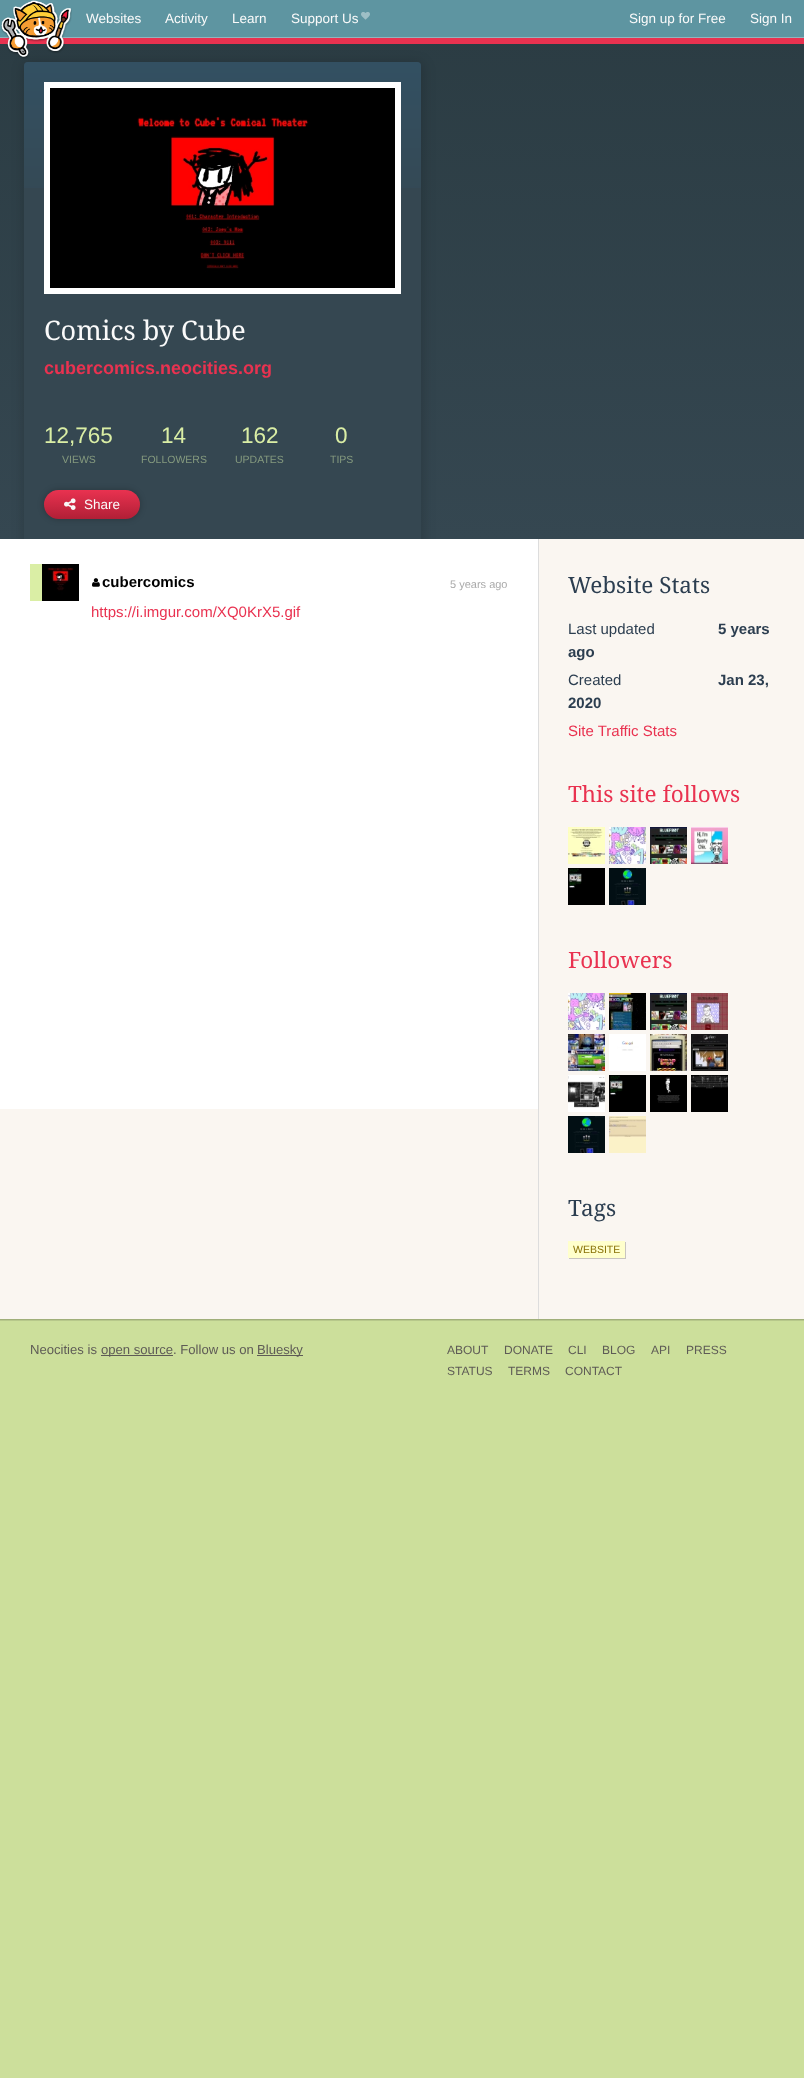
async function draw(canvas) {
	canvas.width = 804;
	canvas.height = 2078;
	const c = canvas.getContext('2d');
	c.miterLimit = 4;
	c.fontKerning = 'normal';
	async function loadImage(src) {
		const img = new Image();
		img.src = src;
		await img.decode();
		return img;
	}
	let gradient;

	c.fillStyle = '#ccdf9b';
	c.fillRect(0, 0, 804, 2078);
	gradient = c.createLinearGradient(402, 22, 402, 539);
	gradient.addColorStop(0, '#2b3c43');
	gradient.addColorStop(1, '#354751');
	c.fillStyle = gradient;
	c.fillRect(0, 44, 804, 495);
	c.fillStyle = '#b3c388';
	c.fillRect(0, 1319, 804, 1);
	c.save();
	c.beginPath();
	c.rect(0, 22, 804, 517);
	c.clip();
	c.fillStyle = '#00000026';
	c.filter = 'blur(6px)';
	c.beginPath();
	c.roundRect(23, 62, 401, 1656, 6);
	c.fill();
	c.filter = 'none';
	c.restore();
	for (const [x, y, w, h, color] of [
		[0, 38, 804, 6, '#e93250'],
		[0, 0, 804, 37, '#5e95a1'],
		[0, 37, 804, 1, '#92b4bd'],
	]) {
		c.fillStyle = color;
		c.fillRect(x, y, w, h);
	}
	c.drawImage(await loadImage('img1.png'), 1, 0, 71, 59);
	c.font = '13.5px Liberation Sans';
	c.fillStyle = '#fafafa';
	for (const [text, x, y] of [
		['Websites', 86, 23],
		['Activity', 165, 23],
		['Learn', 232, 23],
		['Support Us', 291, 23],
	]) {
		c.fillText(text, x, y);
	}
	c.drawImage(await loadImage('img2.png'), 361, 12, 9, 8);
	c.fillText('Sign up for Free', 629, 23);
	c.fillText('Sign In', 750, 23);
	c.fillStyle = '#354751';
	c.beginPath();
	c.roundRect(24, 62, 397, 477, [4, 4, 0, 0]);
	c.fill();
	c.drawImage(await loadImage('img3.png'), 24, 62, 397, 126);
	c.drawImage(await loadImage('img4.png'), 50, 88, 345, 200);
	c.strokeStyle = '#fff';
	c.lineWidth = 6;
	c.strokeRect(47, 85, 351, 206);
	c.font = '27px Droid Serif';
	c.fillStyle = '#fafafa';
	c.fillText('Comics by Cube', 44, 340);
	c.font = 'bold 18px Liberation Sans';
	c.fillStyle = '#e93250';
	c.fillText('cubercomics.neocities.org', 44, 374);
	c.font = '22.5px Liberation Sans';
	c.fillStyle = '#daeea5';
	c.fillText('12,765', 44, 443);
	c.font = '10.5px Liberation Sans';
	c.fillStyle = '#84997e';
	c.fillText('VIEWS', 62, 463);
	c.font = '22.5px Liberation Sans';
	c.fillStyle = '#daeea5';
	c.fillText('14', 161, 443);
	c.font = '10.5px Liberation Sans';
	c.fillStyle = '#84997e';
	c.fillText('FOLLOWERS', 141, 463);
	c.font = '22.5px Liberation Sans';
	c.fillStyle = '#daeea5';
	c.fillText('162', 241, 443);
	c.font = '10.5px Liberation Sans';
	c.fillStyle = '#84997e';
	c.fillText('UPDATES', 235, 463);
	c.font = '22.5px Liberation Sans';
	c.fillStyle = '#daeea5';
	c.fillText('0', 335, 443);
	c.font = '10.5px Liberation Sans';
	c.fillStyle = '#84997e';
	c.fillText('TIPS', 330, 463);
	c.fillStyle = '#00000040';
	c.filter = 'blur(3px)';
	c.beginPath();
	c.roundRect(44, 490, 96, 29, 14.5);
	c.fill();
	c.filter = 'none';
	gradient = c.createLinearGradient(92, 490, 92, 519);
	gradient.addColorStop(0, '#e93250');
	gradient.addColorStop(1, '#b11f36');
	c.fillStyle = gradient;
	c.beginPath();
	c.roundRect(44, 490, 96, 29, 14.5);
	c.fill();
	c.drawImage(await loadImage('img5.png'), 64, 498, 12, 12);
	c.font = '13.5px Liberation Sans';
	c.fillStyle = '#fafafa';
	c.fillText('Share', 84, 509);
	c.fillStyle = '#0000001a';
	c.filter = 'blur(0.5px)';
	c.beginPath();
	c.rect(-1, 539, 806, 782);
	c.fill();
	c.filter = 'none';
	for (const [x, y, w, h, color] of [
		[0, 539, 804, 780, '#faf6f1'],
		[538, 539, 1, 780, '#ddd'],
		[0, 539, 538, 570, '#fff'],
		[30, 564, 12, 37, '#daeea5'],
	]) {
		c.fillStyle = color;
		c.fillRect(x, y, w, h);
	}
	c.drawImage(await loadImage('img6.png'), 42, 564, 37, 37);
	c.drawImage(await loadImage('img7.png'), 92, 578, 8, 9);
	c.font = 'bold 15px Liberation Sans';
	c.fillStyle = '#000';
	c.fillText('cubercomics', 102, 587);
	c.font = '11px Liberation Sans';
	c.fillStyle = '#aaa';
	c.fillText('5 years ago', 450, 588);
	c.font = '15px Liberation Sans';
	c.fillStyle = '#e93250';
	c.fillText('https://i.imgur.com/XQ0KrX5.gif', 91, 617);
	c.font = '22.5px Droid Serif';
	c.fillStyle = '#2c3e50';
	c.fillText('Website Stats', 568, 593);
	c.font = '15px Liberation Sans';
	c.fillText('Last updated', 568, 634);
	c.font = 'bold 15px Liberation Sans';
	c.fillText('5 years', 718, 634);
	c.fillText('ago', 568, 657);
	c.font = '15px Liberation Sans';
	c.fillText('Created', 568, 685);
	c.font = 'bold 15px Liberation Sans';
	c.fillText('Jan 23,', 718, 685);
	c.fillText('2020', 568, 708);
	c.font = '15px Liberation Sans';
	c.fillStyle = '#e93250';
	c.fillText('Site Traffic Stats', 568, 736);
	c.font = '22.5px Droid Serif';
	c.fillText('This site follows', 568, 802);
	c.drawImage(await loadImage('img8.png'), 568, 827, 37, 37);
	c.drawImage(await loadImage('img9.png'), 609, 827, 37, 37);
	c.drawImage(await loadImage('img10.png'), 650, 827, 37, 37);
	c.drawImage(await loadImage('img11.png'), 691, 827, 37, 37);
	c.drawImage(await loadImage('img12.png'), 568, 868, 37, 37);
	c.drawImage(await loadImage('img13.png'), 609, 868, 37, 37);
	c.fillText('Followers', 568, 968);
	c.drawImage(await loadImage('img9.png'), 568, 993, 37, 37);
	c.drawImage(await loadImage('img14.png'), 609, 993, 37, 37);
	c.drawImage(await loadImage('img10.png'), 650, 993, 37, 37);
	c.drawImage(await loadImage('img15.png'), 691, 993, 37, 37);
	c.drawImage(await loadImage('img16.png'), 568, 1034, 37, 37);
	c.drawImage(await loadImage('img17.png'), 609, 1034, 37, 37);
	c.drawImage(await loadImage('img18.png'), 650, 1034, 37, 37);
	c.drawImage(await loadImage('img19.png'), 691, 1034, 37, 37);
	c.drawImage(await loadImage('img20.png'), 568, 1075, 37, 37);
	c.drawImage(await loadImage('img12.png'), 609, 1075, 37, 37);
	c.drawImage(await loadImage('img21.png'), 650, 1075, 37, 37);
	c.drawImage(await loadImage('img22.png'), 691, 1075, 37, 37);
	c.drawImage(await loadImage('img13.png'), 568, 1116, 37, 37);
	c.drawImage(await loadImage('img23.png'), 609, 1116, 37, 37);
	c.fillStyle = '#2c3e50';
	c.fillText('Tags', 568, 1216);
	c.fillStyle = '#00000033';
	c.filter = 'blur(0.5px)';
	c.beginPath();
	c.rect(569, 1242, 57, 17);
	c.fill();
	c.filter = 'none';
	c.fillStyle = '#ffc';
	c.fillRect(568, 1241, 57, 17);
	c.font = '10.5px Liberation Sans';
	c.fillStyle = '#897106';
	c.fillText('WEBSITE', 573, 1253);
	c.font = '13.1px Liberation Sans';
	c.fillStyle = '#5e5b56';
	c.fillText('Neocities is', 30, 1354);
	c.fillRect(101, 1355, 72, 1);
	c.fillText('open source. Follow us on', 101, 1354);
	c.fillRect(257, 1355, 46, 1);
	c.fillText('Bluesky', 257, 1354);
	c.font = '12px Liberation Sans';
	for (const [text, x, y] of [
		['ABOUT', 447, 1354],
		['DONATE', 504, 1354],
		['CLI', 568, 1354],
		['BLOG', 602, 1354],
		['API', 651, 1354],
		['PRESS', 686, 1354],
		['STATUS', 447, 1375],
		['TERMS', 508, 1375],
		['CONTACT', 565, 1375],
	]) {
		c.fillText(text, x, y);
	}
}

draw(document.querySelector('canvas'));
